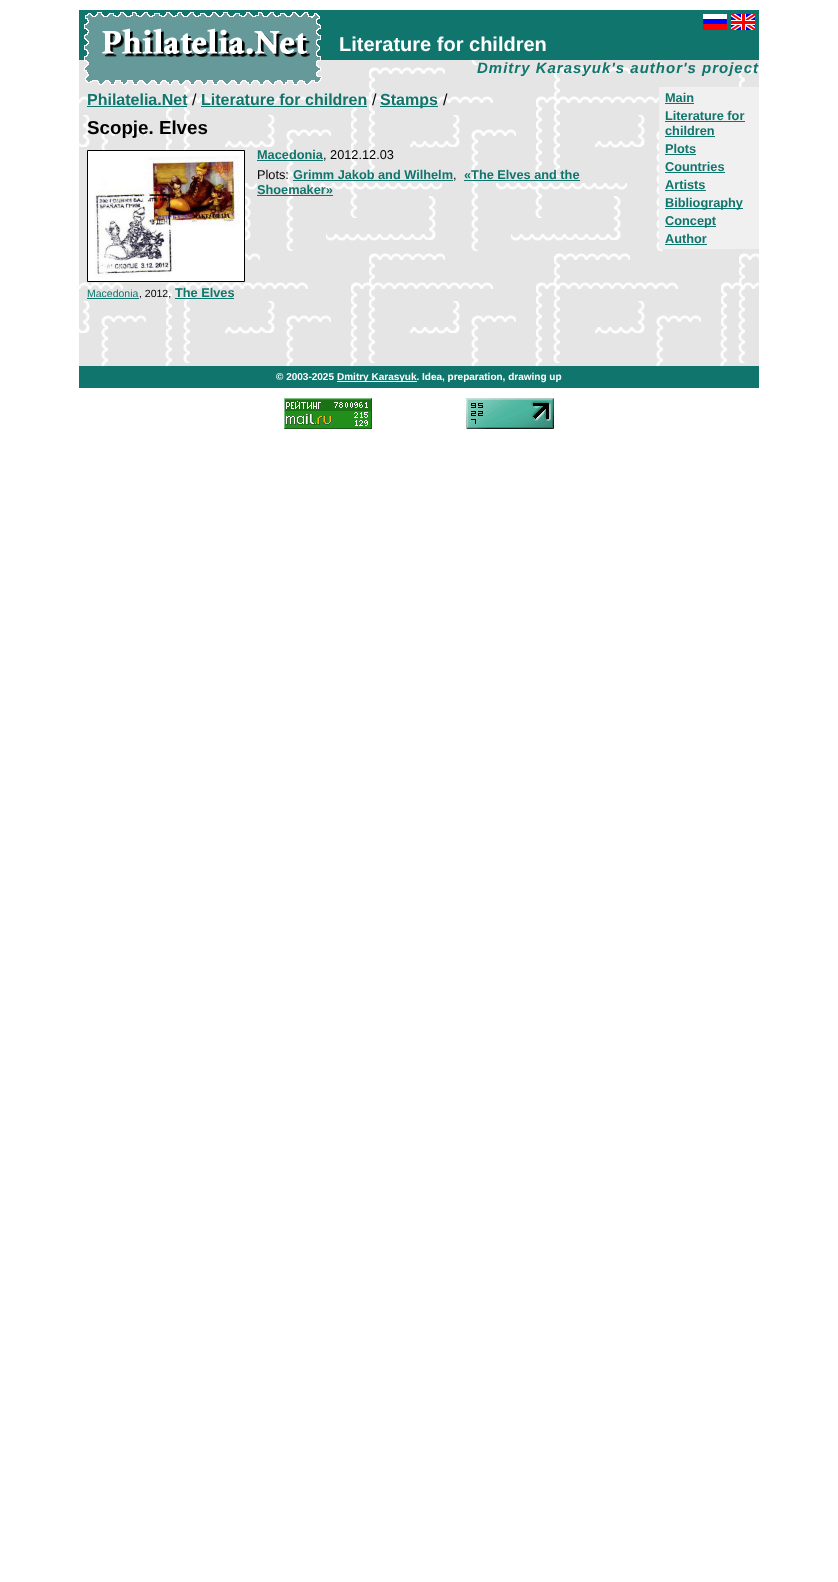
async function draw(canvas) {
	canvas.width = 838;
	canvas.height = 1582;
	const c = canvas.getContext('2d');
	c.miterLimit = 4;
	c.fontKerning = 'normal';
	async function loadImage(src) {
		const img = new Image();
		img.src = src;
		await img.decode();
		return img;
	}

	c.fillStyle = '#fff';
	c.fillRect(0, 0, 838, 1582);
	c.drawImage(await loadImage('img1.png'), 79, 60, 680, 306);
	c.fillStyle = '#10756c';
	c.fillRect(79, 10, 680, 50);
	c.fillStyle = '#e5e5e5';
	c.fillRect(101, 60, 192, 26);
	c.drawImage(await loadImage('img2.png'), 84, 12, 238, 73);
	c.drawImage(await loadImage('img3.png'), 703, 14, 24, 16);
	c.drawImage(await loadImage('img4.png'), 731, 14, 24, 16);
	c.font = 'bold 20px Liberation Sans';
	c.fillStyle = '#fff';
	c.fillText('Literature for children', 339, 51);
	c.letterSpacing = '1px';
	c.font = 'italic bold 15px Liberation Sans';
	c.fillStyle = '#10756c';
	c.fillText('Dmitry Karasyuk\'s author\'s project', 477, 73);
	c.letterSpacing = '0px';
	c.font = 'bold 16px Liberation Sans';
	c.fillText('Philatelia.Net', 87, 105);
	c.fillRect(87, 106, 100, 1);
	c.font = '16px Liberation Sans';
	c.fillStyle = '#000';
	c.fillText('/', 192, 105);
	c.font = 'bold 16px Liberation Sans';
	c.fillStyle = '#10756c';
	c.fillText('Literature for children', 201, 105);
	c.fillRect(201, 106, 166, 1);
	c.font = '16px Liberation Sans';
	c.fillStyle = '#000';
	c.fillText('/', 372, 105);
	c.fillStyle = '#10756c';
	c.fillRect(380, 106, 58, 1);
	c.font = 'bold 16px Liberation Sans';
	c.fillText('Stamps', 380, 105);
	c.font = '16px Liberation Sans';
	c.fillStyle = '#000';
	c.fillText('/', 443, 105);
	c.fillStyle = '#f0f0f0';
	c.fillRect(659, 87, 100, 162);
	c.font = 'bold 12.75px Liberation Sans';
	c.fillStyle = '#10756c';
	c.fillText('Main', 665, 102);
	c.fillRect(665, 103, 29, 1);
	c.fillText('Literature for', 665, 120);
	c.fillRect(665, 121, 80, 1);
	c.fillText('children', 665, 135);
	c.fillRect(665, 136, 50, 1);
	c.fillText('Plots', 665, 153);
	c.fillRect(665, 154, 31, 1);
	c.fillText('Countries', 665, 171);
	c.fillRect(665, 172, 60, 1);
	c.fillText('Artists', 665, 189);
	c.fillRect(665, 190, 41, 1);
	c.fillRect(665, 208, 78, 1);
	c.fillText('Bibliography', 665, 207);
	c.fillRect(665, 226, 51, 1);
	c.fillText('Concept', 665, 225);
	c.fillText('Author', 665, 243);
	c.fillRect(665, 244, 42, 1);
	c.font = 'bold 18.75px Liberation Sans';
	c.fillStyle = '#000';
	c.fillText('Scopje. Elves', 87, 134);
	c.fillStyle = '#fff';
	c.beginPath();
	c.rect(87.5, 150.5, 157, 131);
	c.fill();
	c.strokeStyle = '#000';
	c.stroke();
	c.drawImage(await loadImage('img5.png'), 94, 156, 146, 121);
	c.font = 'bold 12.75px Liberation Sans';
	c.fillStyle = '#10756c';
	c.fillText('Macedonia', 257, 159);
	c.fillRect(257, 160, 66, 1);
	c.font = '12.75px Liberation Sans';
	c.fillStyle = '#000';
	c.fillText(', 2012.12.03', 323, 159);
	c.fillText('Plots:', 257, 179);
	c.font = 'bold 12.75px Liberation Sans';
	c.fillStyle = '#10756c';
	c.fillText('Grimm Jakob and Wilhelm', 293, 179);
	c.fillRect(293, 180, 160, 1);
	c.font = '12.75px Liberation Sans';
	c.fillStyle = '#000';
	c.fillText(',', 453, 179);
	c.font = 'bold 12.75px Liberation Sans';
	c.fillStyle = '#10756c';
	c.fillText('«The Elves and the', 464, 179);
	c.fillRect(464, 180, 116, 1);
	c.fillText('Shoemaker»', 257, 194);
	c.fillRect(257, 195, 76, 1);
	c.font = '10.5px Liberation Sans';
	c.fillText('Macedonia', 87, 297);
	c.fillRect(87, 298, 52, 1);
	c.fillStyle = '#000';
	c.fillText(', 2012,', 139, 297);
	c.font = 'bold 12.75px Liberation Sans';
	c.fillStyle = '#10756c';
	c.fillText('The Elves', 175, 297);
	c.fillRect(175, 298, 59, 1);
	c.fillRect(79, 366, 680, 22);
	c.font = 'bold 10px Liberation Sans';
	c.fillStyle = '#fff';
	c.fillText('© 2003-2025', 276, 380);
	c.fillRect(337, 381, 80, 1);
	c.fillText('Dmitry Karasyuk. Idea, preparation, drawing up', 337, 380);
	c.drawImage(await loadImage('img6.png'), 284, 398, 88, 31);
	c.drawImage(await loadImage('img7.png'), 466, 398, 88, 31);
}

draw(document.querySelector('canvas'));
